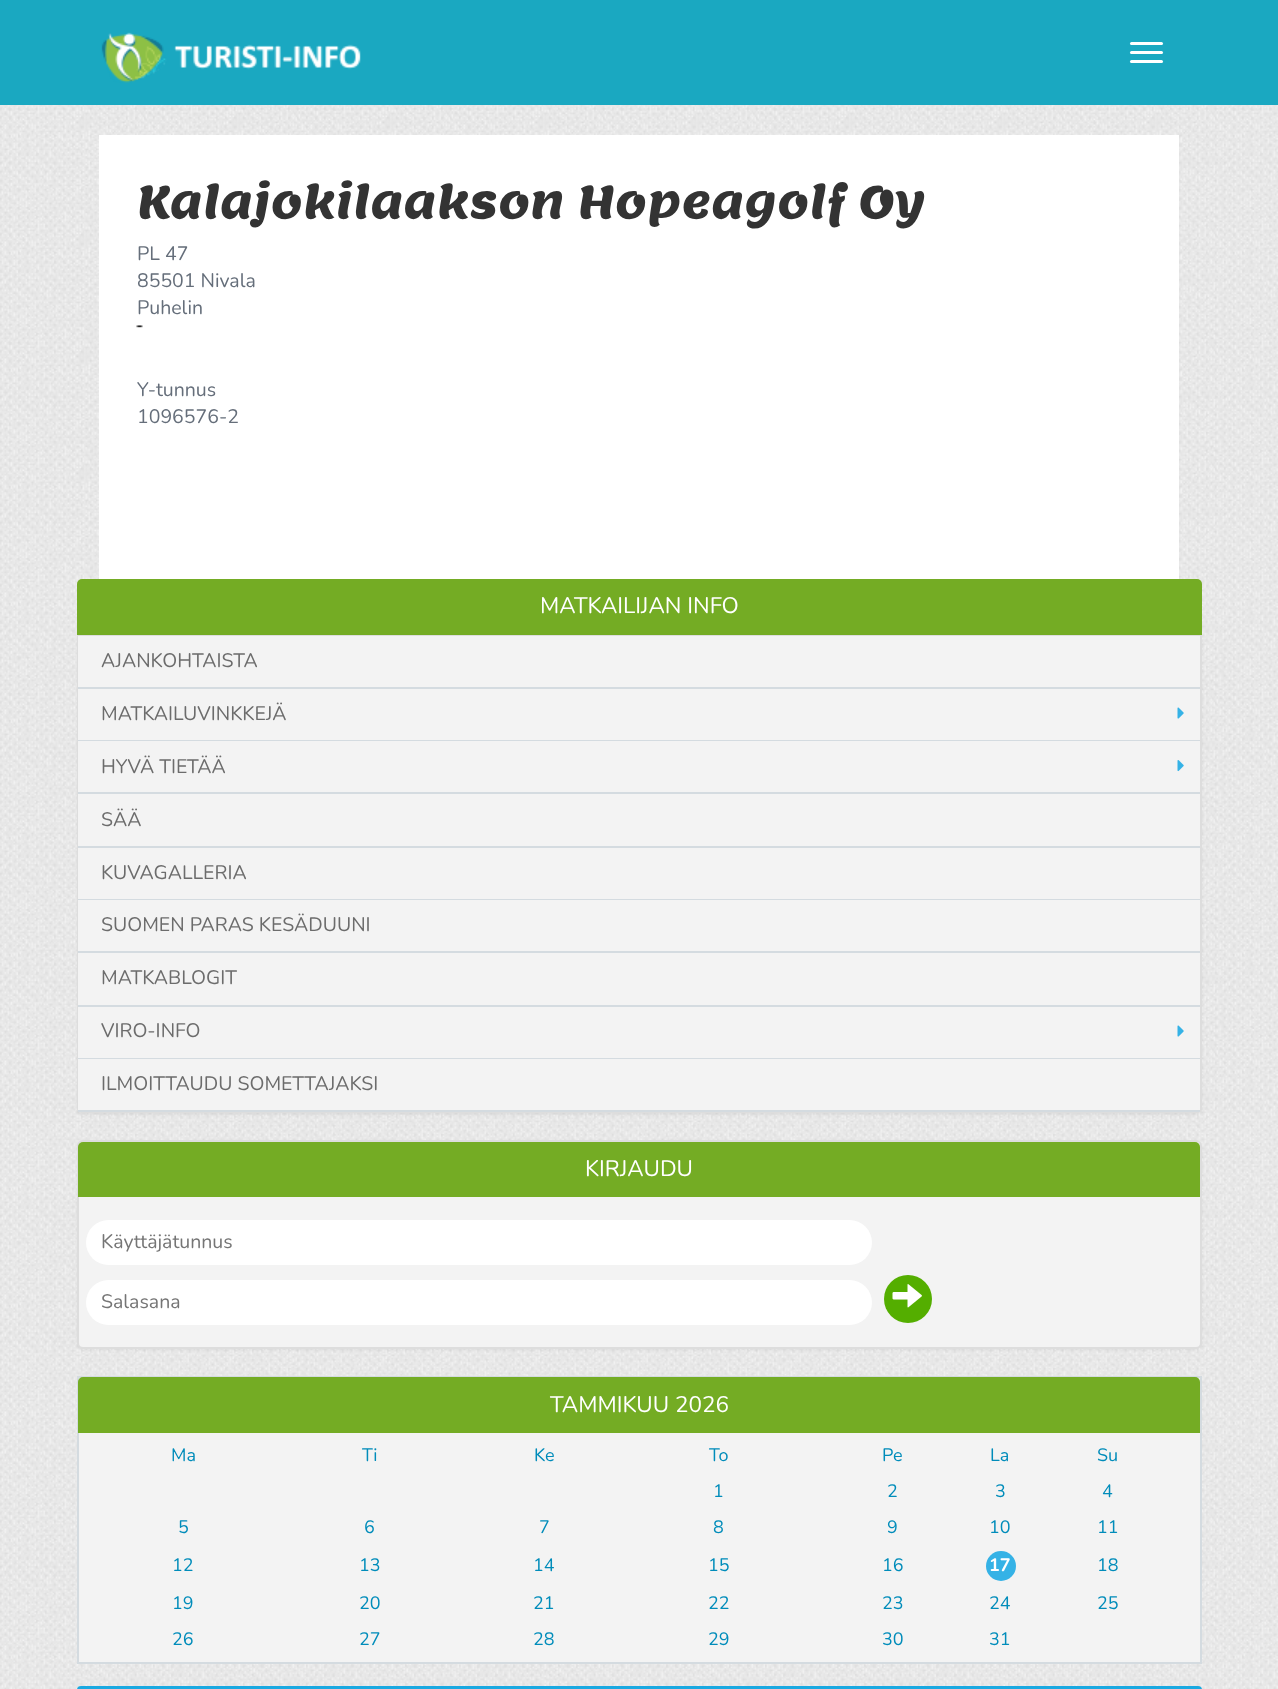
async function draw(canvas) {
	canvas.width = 1278;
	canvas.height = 1689;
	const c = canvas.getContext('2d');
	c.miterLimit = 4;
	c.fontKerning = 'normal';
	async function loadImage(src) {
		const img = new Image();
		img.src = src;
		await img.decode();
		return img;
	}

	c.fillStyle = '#fff';
	c.fillRect(0, 0, 1278, 1689);
	c.drawImage(await loadImage('img1.png'), 0, 105, 1278, 1584);
	c.fillStyle = '#1aa8c1';
	c.fillRect(0, 0, 1278, 105);
	c.drawImage(await loadImage('img2.png'), 101, 32, 260, 51);
	c.fillStyle = '#fff';
	c.beginPath();
	c.roundRect(1130, 42, 33, 3, 1.5);
	c.fill();
	c.beginPath();
	c.roundRect(1130, 51, 33, 3, 1.5);
	c.fill();
	c.beginPath();
	c.roundRect(1130, 60, 33, 3, 1.5);
	c.fill();
	c.fillRect(99, 135, 1080, 444);
	c.font = '45px Lemon';
	c.fillStyle = '#333';
	c.fillText('Kalajokilaakson Hopeagolf Oy', 137, 218);
	c.font = '19.5px Nunito';
	c.fillStyle = '#656e7a';
	for (const [text, x, y] of [
		['PL 47', 137, 260],
		['85501 Nivala', 137, 287],
		['Puhelin', 137, 314],
	]) {
		c.fillText(text, x, y);
	}
	c.drawImage(await loadImage('img3.png'), 136, 325, 7, 3);
	c.fillText('Y-tunnus', 137, 396);
	c.fillText('1096576-2', 137, 423);
	c.fillStyle = '#74ac24';
	c.beginPath();
	c.roundRect(77, 579, 1125, 56, [5, 5, 0, 0]);
	c.fill();
	c.font = '22.5px Nunito';
	c.fillStyle = '#fff';
	c.fillText('MATKAILIJAN INFO', 540, 613);
	c.fillStyle = '#0000000d';
	c.filter = 'blur(1px)';
	c.beginPath();
	c.roundRect(77, 636, 1125, 479, 5);
	c.fill();
	c.filter = 'none';
	c.beginPath();
	c.roundRect(78, 636, 1123, 476, [0, 0, 4, 4]);
	c.strokeStyle = '#ddd';
	c.lineWidth = 2;
	c.stroke();
	c.fillStyle = '#f3f3f3';
	c.fillRect(78, 636, 1122, 51);
	c.fillStyle = '#d4dbe0';
	c.fillRect(78, 687, 1122, 2);
	c.font = '19.5px Nunito';
	c.fillStyle = '#6c6c6c';
	c.fillText('AJANKOHTAISTA', 101, 667);
	c.fillStyle = '#f3f3f3';
	c.fillRect(78, 689, 1122, 51);
	c.fillStyle = '#d4dbe0';
	c.fillRect(78, 740, 1122, 1);
	c.fillStyle = '#6c6c6c';
	c.fillText('MATKAILUVINKKEJÄ', 101, 720);
	c.drawImage(await loadImage('img4.png'), 1177, 707, 7, 12);
	c.fillStyle = '#f3f3f3';
	c.fillRect(78, 741, 1122, 51);
	c.fillStyle = '#d4dbe0';
	c.fillRect(78, 792, 1122, 2);
	c.fillStyle = '#6c6c6c';
	c.fillText('HYVÄ TIETÄÄ', 101, 773);
	c.drawImage(await loadImage('img5.png'), 1177, 760, 7, 12);
	c.fillStyle = '#f3f3f3';
	c.fillRect(78, 794, 1122, 52);
	c.fillStyle = '#d4dbe0';
	c.fillRect(78, 846, 1122, 2);
	c.fillStyle = '#6c6c6c';
	c.fillText('SÄÄ', 101, 826);
	c.fillStyle = '#f3f3f3';
	c.fillRect(78, 848, 1122, 51);
	c.fillStyle = '#d4dbe0';
	c.fillRect(78, 899, 1122, 1);
	c.fillStyle = '#6c6c6c';
	c.fillText('KUVAGALLERIA', 101, 879);
	c.fillStyle = '#f3f3f3';
	c.fillRect(78, 900, 1122, 51);
	c.fillStyle = '#d4dbe0';
	c.fillRect(78, 951, 1122, 2);
	c.fillStyle = '#6c6c6c';
	c.fillText('SUOMEN PARAS KESÄDUUNI', 101, 931);
	c.fillStyle = '#f3f3f3';
	c.fillRect(78, 953, 1122, 52);
	c.fillStyle = '#d4dbe0';
	c.fillRect(78, 1005, 1122, 2);
	c.fillStyle = '#6c6c6c';
	c.fillText('MATKABLOGIT', 101, 984);
	c.fillStyle = '#f3f3f3';
	c.fillRect(78, 1007, 1122, 51);
	c.fillStyle = '#d4dbe0';
	c.fillRect(78, 1058, 1122, 1);
	c.fillStyle = '#6c6c6c';
	c.fillText('VIRO-INFO', 101, 1037);
	c.drawImage(await loadImage('img4.png'), 1177, 1025, 7, 12);
	c.fillStyle = '#f3f3f3';
	c.fillRect(78, 1059, 1122, 51);
	c.fillStyle = '#d4dbe0';
	c.fillRect(78, 1110, 1122, 2);
	c.fillStyle = '#6c6c6c';
	c.fillText('ILMOITTAUDU SOMETTAJAKSI', 101, 1090);
	c.fillStyle = '#0000000d';
	c.filter = 'blur(1px)';
	c.beginPath();
	c.roundRect(77, 1142, 1125, 208, 6);
	c.fill();
	c.filter = 'none';
	c.fillStyle = '#f3f3f3';
	c.beginPath();
	c.roundRect(78, 1141, 1123, 207, 5);
	c.fill();
	c.stroke();
	c.fillStyle = '#74ac24';
	c.beginPath();
	c.roundRect(78, 1142, 1122, 55, [5, 5, 0, 0]);
	c.fill();
	c.font = '22.5px Nunito';
	c.fillStyle = '#fff';
	c.fillText('KIRJAUDU', 585, 1176);
	c.beginPath();
	c.roundRect(86, 1220, 786, 45, 22.5);
	c.fill();
	c.font = '19.5px Nunito';
	c.fillStyle = '#757575';
	c.fillText('Käyttäjätunnus', 101, 1248);
	c.fillStyle = '#fff';
	c.beginPath();
	c.roundRect(86, 1280, 786, 45, 22.5);
	c.fill();
	c.fillStyle = '#757575';
	c.fillText('Salasana', 101, 1308);
	c.fillStyle = '#54ae00';
	c.beginPath();
	c.arc(908, 1299, 24, 0, 2 * Math.PI);
	c.fill();
	c.drawImage(await loadImage('img6.png'), 892, 1284, 30, 24);
	c.fillStyle = '#f3f3f3';
	c.beginPath();
	c.rect(78, 1377, 1123, 286);
	c.fill();
	c.strokeStyle = '#d4dbe0';
	c.stroke();
	c.fillStyle = '#74ac24';
	c.beginPath();
	c.roundRect(78, 1377, 1122, 56, [5, 5, 0, 0]);
	c.fill();
	c.font = '22.5px Nunito';
	c.fillStyle = '#fff';
	c.fillText('TAMMIKUU 2026', 550, 1412);
	c.font = '18px Nunito';
	c.fillStyle = '#008cba';
	for (const [text, x, y] of [
		['Ma', 171, 1461],
		['Ti', 362, 1461],
		['Ke', 534, 1461],
		['To', 709, 1461],
		['Pe', 882, 1461],
		['La', 990, 1461],
		['Su', 1097, 1461],
		['1', 713, 1497],
		['2', 887, 1497],
		['3', 995, 1497],
		['4', 1102, 1497],
		['5', 178, 1533],
		['6', 364, 1533],
		['7', 539, 1533],
		['8', 713, 1533],
		['9', 887, 1533],
		['10', 989, 1533],
		['11', 1097, 1533],
		['12', 172, 1571],
		['13', 359, 1571],
		['14', 533, 1571],
		['15', 708, 1571],
		['16', 882, 1571],
	]) {
		c.fillText(text, x, y);
	}
	c.fillStyle = '#35b2e6';
	c.beginPath();
	c.arc(1001, 1566, 15, 0, 2 * Math.PI);
	c.fill();
	c.font = 'bold 18px Nunito';
	c.fillStyle = '#fff';
	c.fillText('17', 989, 1571);
	c.font = '18px Nunito';
	c.fillStyle = '#008cba';
	for (const [text, x, y] of [
		['18', 1097, 1571],
		['19', 172, 1609],
		['20', 359, 1609],
		['21', 533, 1609],
		['22', 708, 1609],
		['23', 882, 1609],
		['24', 989, 1609],
		['25', 1097, 1609],
		['26', 172, 1645],
		['27', 359, 1645],
		['28', 533, 1645],
		['29', 708, 1645],
		['30', 882, 1645],
		['31', 989, 1645],
	]) {
		c.fillText(text, x, y);
	}
	c.fillStyle = '#1aa9e1';
	c.beginPath();
	c.roundRect(77, 1686, 1125, 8, 5);
	c.fill();
}

draw(document.querySelector('canvas'));
